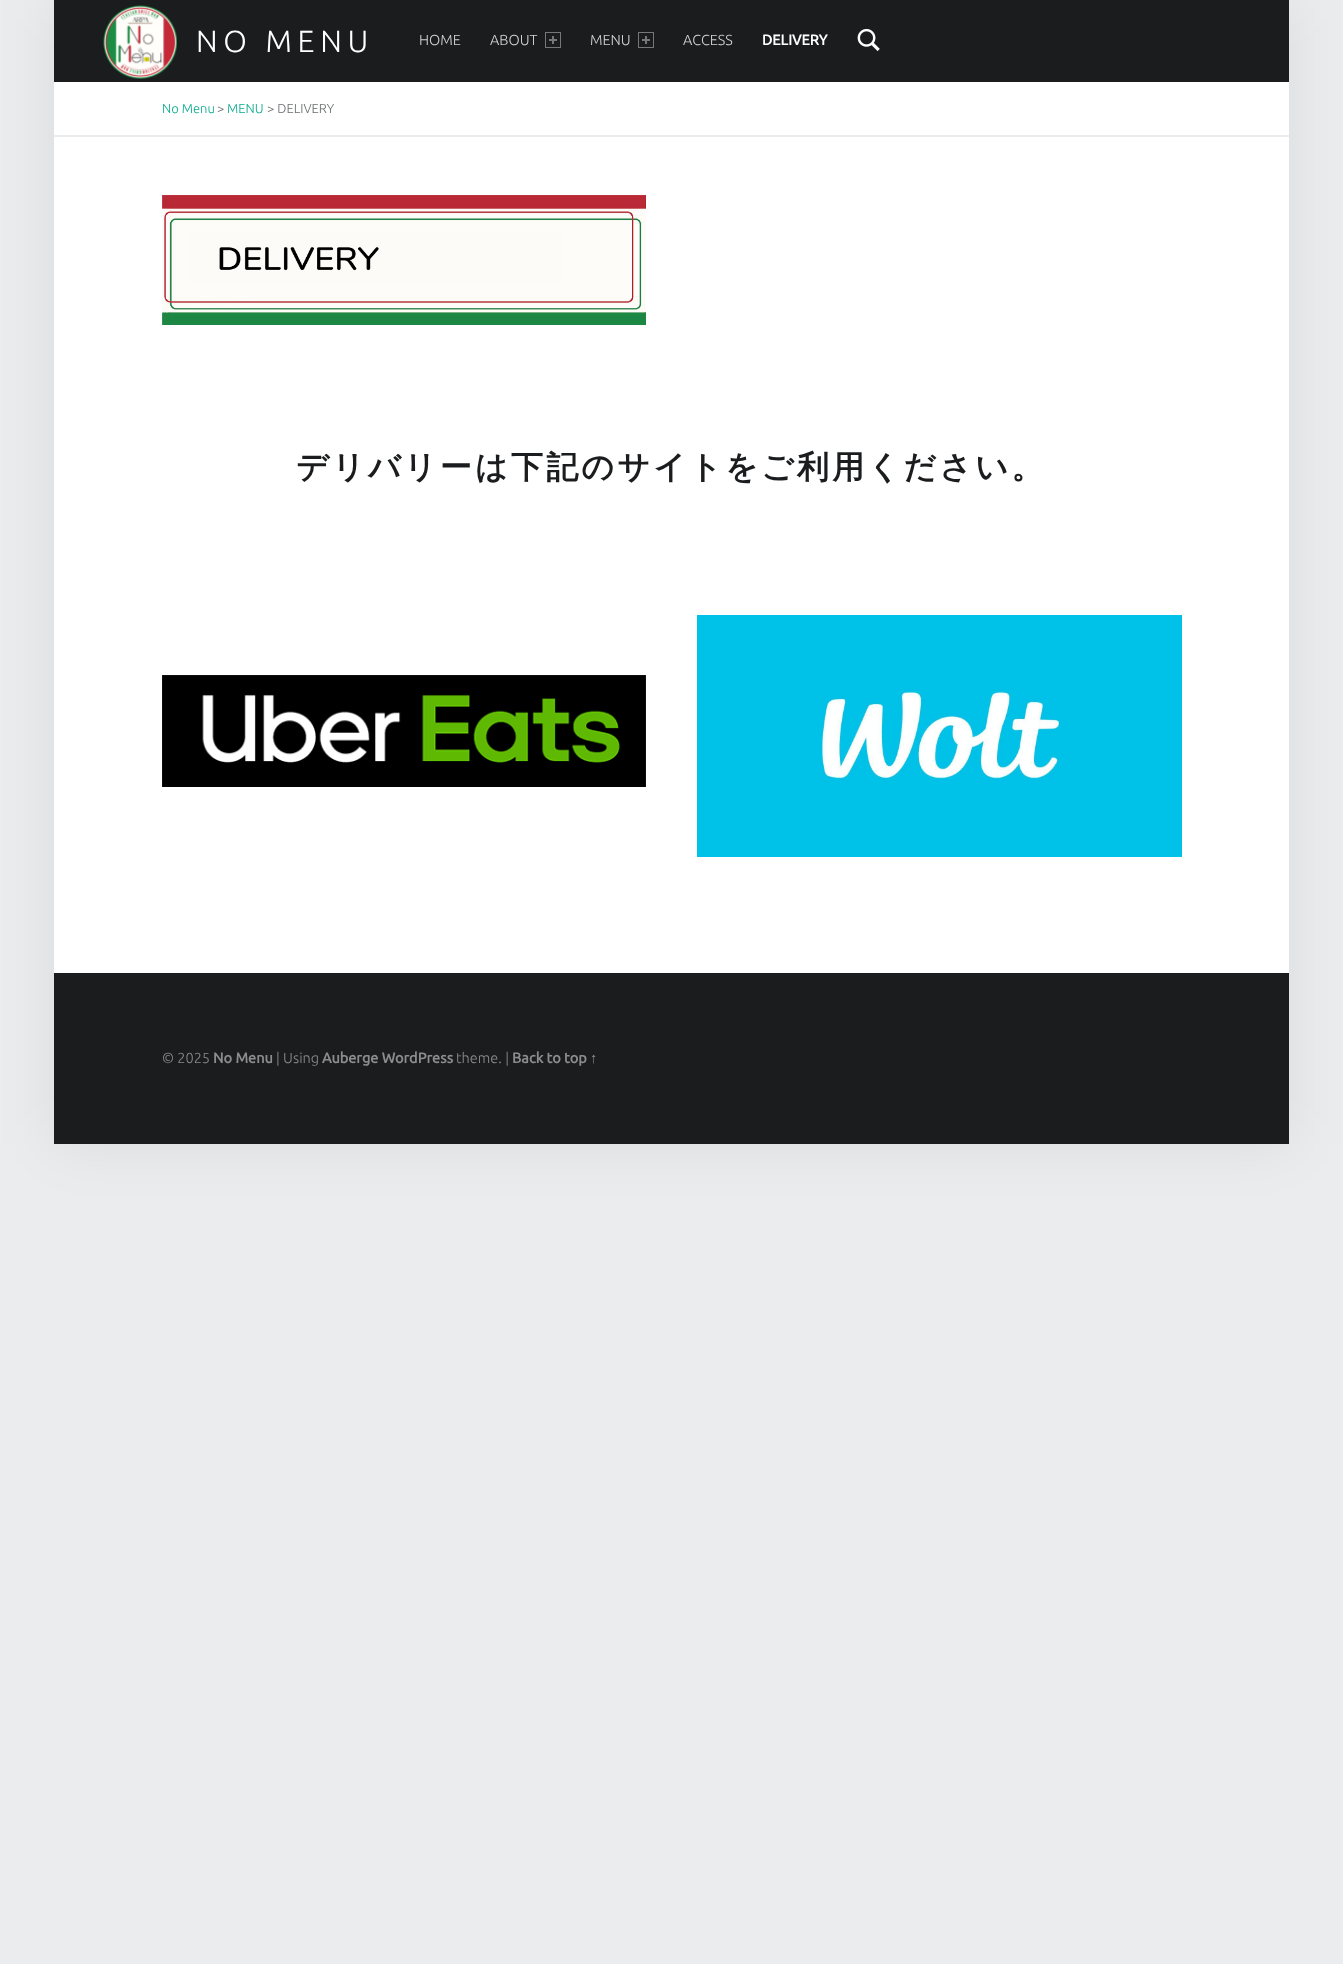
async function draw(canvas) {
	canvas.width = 1343;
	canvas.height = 1964;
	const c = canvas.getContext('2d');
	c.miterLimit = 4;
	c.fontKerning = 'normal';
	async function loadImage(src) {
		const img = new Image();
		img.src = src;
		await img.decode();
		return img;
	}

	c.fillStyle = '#eaecee';
	c.fillRect(0, 0, 1343, 1964);
	c.fillStyle = '#00000012';
	c.filter = 'blur(29px)';
	c.beginPath();
	c.rect(54, 0, 1235, 1144);
	c.fill();
	c.filter = 'none';
	c.fillStyle = '#fff';
	c.fillRect(54, 82, 1235, 891);
	c.fillStyle = '#1a1c1e';
	c.fillRect(54, 0, 1235, 82);
	c.drawImage(await loadImage('img1.png'), 103, 5, 74, 74);
	c.letterSpacing = '5.75px';
	c.font = '300 30.5px Ubuntu';
	c.fillStyle = '#fff';
	c.fillText('NO MENU', 196, 52);
	c.letterSpacing = '0px';
	c.font = '300 14.5px Ubuntu';
	c.fillStyle = '#d1d2d2';
	c.fillText('HOME', 419, 45);
	c.fillText('ABOUT', 490, 45);
	c.strokeStyle = '#767778';
	c.strokeRect(545.5, 32.5, 15, 15);
	c.fillStyle = '#767778';
	c.fillRect(549, 39, 8, 2);
	c.fillRect(552, 36, 2, 8);
	c.fillStyle = '#d1d2d2';
	c.fillText('MENU', 590, 45);
	c.strokeRect(638.5, 32.5, 15, 15);
	c.fillStyle = '#767778';
	c.fillRect(642, 39, 8, 2);
	c.fillRect(645, 36, 2, 8);
	c.fillStyle = '#d1d2d2';
	c.fillText('ACCESS', 683, 45);
	c.font = 'bold 14.5px Ubuntu';
	c.fillStyle = '#fff';
	c.fillText('DELIVERY', 762, 45);
	c.drawImage(await loadImage('img2.png'), 857, 28, 23, 23);
	c.fillStyle = '#eaecee';
	c.fillRect(54, 135, 1235, 2);
	c.font = '300 13px Ubuntu';
	c.fillStyle = '#0aac8e';
	c.fillText('No Menu', 162, 113);
	c.fillStyle = '#6a6c6e';
	c.fillText('>', 217, 113);
	c.fillStyle = '#0aac8e';
	c.fillText('MENU', 227, 113);
	c.fillStyle = '#6a6c6e';
	c.fillText('> DELIVERY', 267, 113);
	c.drawImage(await loadImage('img3.png'), 162, 195, 484, 130);
	c.letterSpacing = '3.2px';
	c.font = 'bold 32px WenQuanYi Zen Hei';
	c.fillStyle = '#1a1c1e';
	c.fillText('デリバリーは下記のサイトをご利用ください。', 296, 478);
	c.drawImage(await loadImage('img4.png'), 162, 675, 484, 112);
	c.drawImage(await loadImage('img5.png'), 697, 615, 485, 242);
	c.fillRect(54, 973, 1235, 171);
	c.letterSpacing = '0px';
	c.font = '300 14.5px Ubuntu';
	c.fillStyle = '#8a8c8e';
	c.fillText('© 2025', 162, 1063);
	c.font = 'bold 14.5px Ubuntu';
	c.fillText('No Menu', 213, 1063);
	c.font = '300 14.5px Ubuntu';
	c.fillText('| Using', 276, 1063);
	c.font = 'bold 14.5px Ubuntu';
	c.fillText('Auberge WordPress', 322, 1063);
	c.font = '300 14.5px Ubuntu';
	c.fillText('theme. |', 456, 1063);
	c.font = 'bold 14.5px Ubuntu';
	c.fillText('Back to top', 512, 1063);
	c.font = 'bold 14.5px Liberation Sans';
	c.fillText('↑', 590, 1063);
}

draw(document.querySelector('canvas'));
